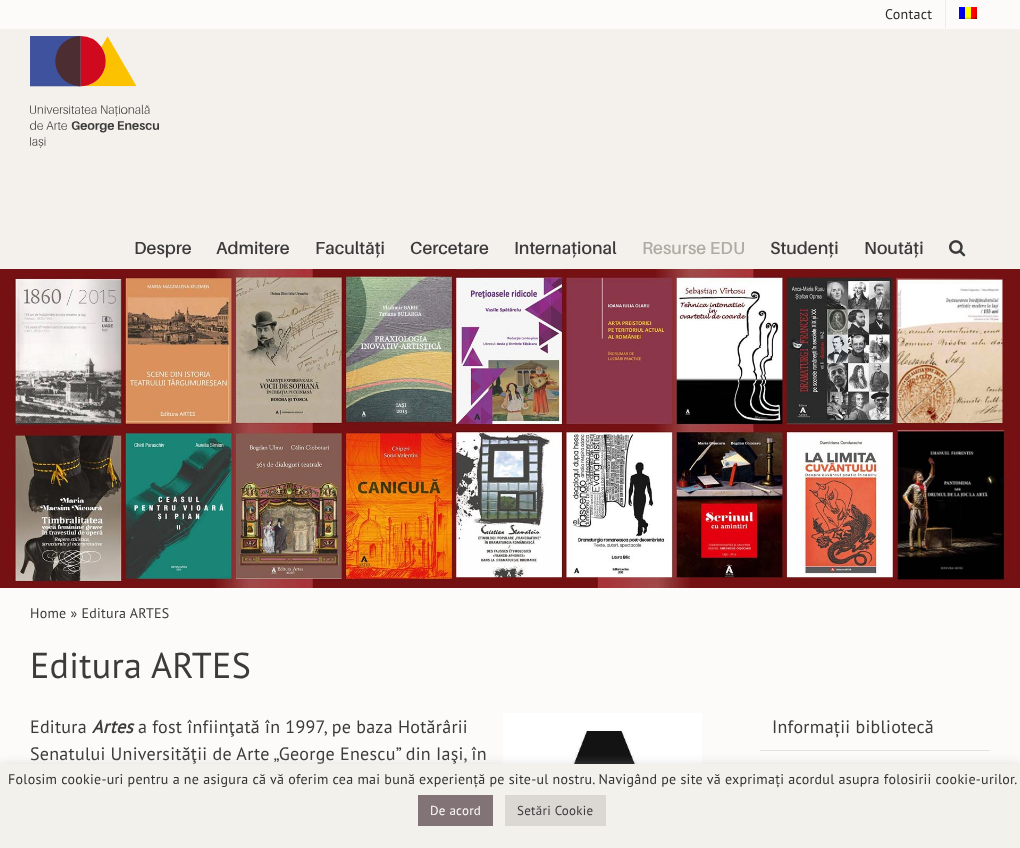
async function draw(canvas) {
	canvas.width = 1020;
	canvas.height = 848;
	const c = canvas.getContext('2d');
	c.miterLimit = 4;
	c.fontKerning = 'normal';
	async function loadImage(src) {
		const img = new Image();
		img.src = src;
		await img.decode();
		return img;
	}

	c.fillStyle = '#fcfbfa';
	c.fillRect(0, 0, 1020, 848);
	c.letterSpacing = '0.27px';
	c.font = '14px PT Sans';
	c.fillStyle = '#292929';
	c.fillText('Contact', 885, 19);
	c.fillStyle = '#edeceb';
	c.fillRect(945, 0, 1, 28);
	c.drawImage(await loadImage('img1.png'), 959, 7, 18, 12);
	c.fillStyle = '#f4f1ec';
	c.fillRect(0, 29, 1020, 240);
	c.drawImage(await loadImage('img2.png'), 30, 36, 129, 112);
	c.letterSpacing = '0px';
	c.font = '600 17.5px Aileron';
	c.fillStyle = '#3b3b3c';
	for (const [text, x, y] of [
		['Despre', 134, 254],
		['Admitere', 216, 254],
		['Facultăți', 315, 254],
		['Cercetare', 410, 254],
		['Internațional', 514, 254],
	]) {
		c.fillText(text, x, y);
	}
	c.fillStyle = '#afaca5';
	c.fillText('Resurse EDU', 642, 254);
	c.fillStyle = '#3b3b3c';
	c.fillText('Studenți', 770, 254);
	c.fillText('Noutăți', 864, 254);
	c.drawImage(await loadImage('img3.png'), 949, 240, 17, 17);
	c.drawImage(await loadImage('img4.png'), 0, 269, 1020, 319);
	c.letterSpacing = '0.27px';
	c.font = '14px PT Sans';
	c.fillText('Home » Editura ARTES', 30, 618);
	c.letterSpacing = '0.3px';
	c.font = '36px "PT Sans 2"';
	c.fillText('Editura ARTES', 30, 678);
	c.letterSpacing = '0.27px';
	c.font = '18px PT Sans';
	c.fillText('Editura', 30, 733);
	c.font = 'italic bold 18px PT Sans';
	c.fillText('Artes', 92, 733);
	c.font = '18px PT Sans';
	c.fillText('a fost înfiinţată în 1997, pe baza Hotărârii', 138, 733);
	c.drawImage(await loadImage('img5.png'), 503, 713, 199, 51);
	c.fillText('Senatului Universităţii de Arte „George Enescu” din Iaşi, în', 30, 760);
	c.fillStyle = '#e2e2e2';
	c.fillRect(760, 750, 230, 1);
	c.fillStyle = '#3b3b3c';
	c.fillText('Informații bibliotecă', 772, 733);
	c.fillStyle = '#acabab4d';
	c.filter = 'blur(5px)';
	c.beginPath();
	c.rect(0, 763, 1020, 84);
	c.fill();
	c.filter = 'none';
	c.fillStyle = '#f3f1ec';
	c.fillRect(0, 764, 1020, 84);
	c.font = '14px PT Sans';
	c.fillStyle = '#333';
	c.fillText('Folosim cookie-uri pentru a ne asigura că vă oferim cea mai bună experiență pe site-ul nostru. Navigând pe site vă exprimați acordul asupra folosirii cookie-urilor.', 8, 784);
	c.fillStyle = '#827476';
	c.fillRect(418, 795, 75, 31);
	c.font = '13px PT Sans';
	c.fillStyle = '#fcfbfa';
	c.fillText('De acord', 430, 815);
	c.fillStyle = '#dbd8d4';
	c.fillRect(505, 795, 101, 31);
	c.fillStyle = '#3b3b3c';
	c.fillText('Setări Cookie', 517, 815);
}

draw(document.querySelector('canvas'));
